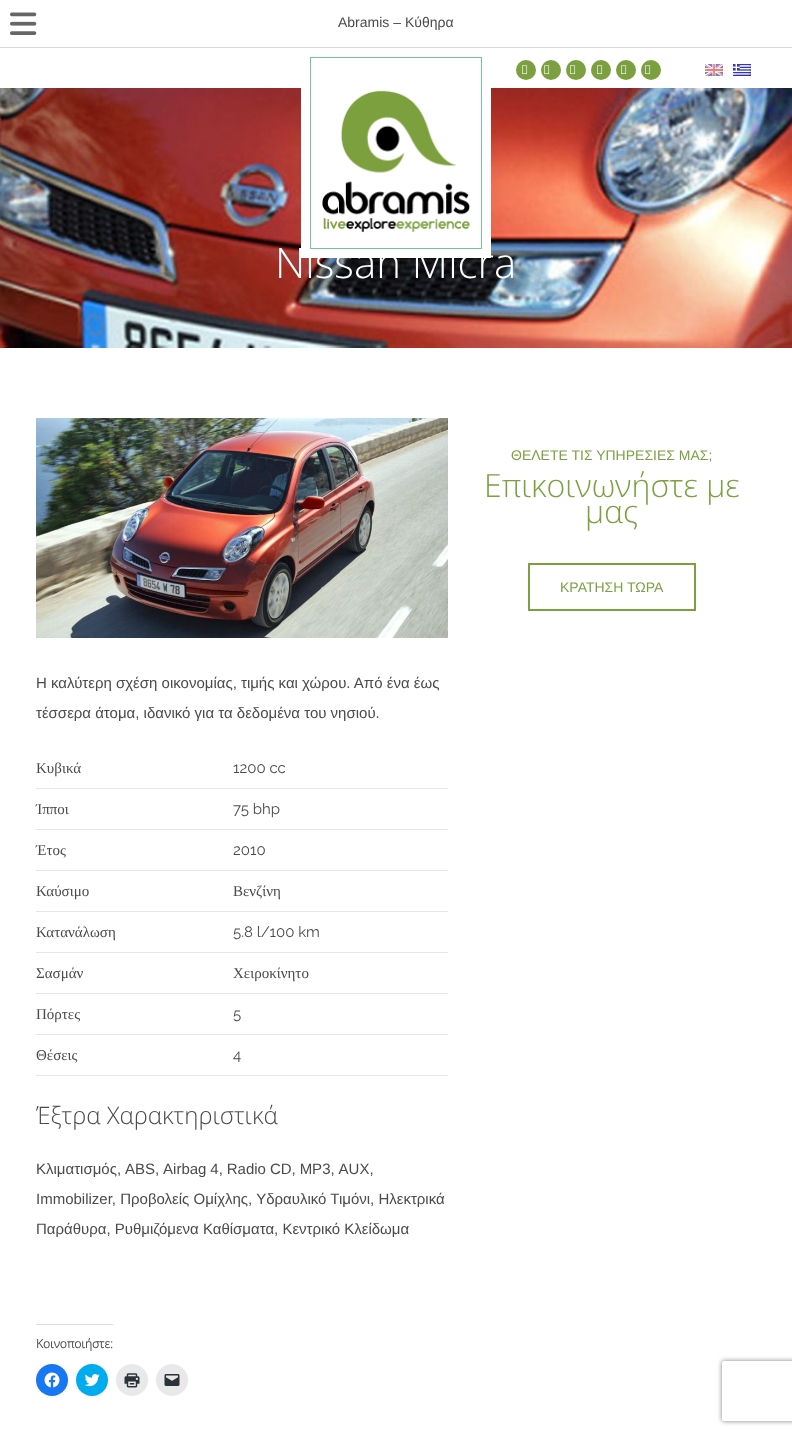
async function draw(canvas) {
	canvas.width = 792;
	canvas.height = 1435;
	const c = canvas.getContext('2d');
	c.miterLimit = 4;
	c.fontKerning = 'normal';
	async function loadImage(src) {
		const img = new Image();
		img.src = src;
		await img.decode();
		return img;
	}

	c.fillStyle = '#fff';
	c.fillRect(0, 0, 792, 1435);
	c.fillStyle = '#d9d9d9';
	c.fillRect(0, 47, 792, 1);
	c.drawImage(await loadImage('img1.png'), 10, 12, 27, 23);
	c.font = '14px Arimo';
	c.fillStyle = '#4b4b4b';
	c.fillText('Abramis – Κύθηρα', 338, 27);
	c.drawImage(await loadImage('img6.png'), 0, 88, 792, 260);
	c.fillStyle = '#fff';
	c.fillRect(301, 88, 190, 170);
	c.font = '300 42px Open Sans';
	c.fillText('Nissan Micra', 275, 278);
	c.strokeStyle = '#75c39b';
	c.strokeRect(310.5, 57.5, 171, 191);
	c.drawImage(await loadImage('img2.png'), 322, 90, 149, 143);
	c.fillStyle = '#7ca03f';
	c.beginPath();
	c.arc(526, 70, 10, 0, 2 * Math.PI);
	c.fill();
	c.drawImage(await loadImage('img3.png'), 522, 65, 6, 9);
	c.beginPath();
	c.arc(551, 70, 10, 0, 2 * Math.PI);
	c.fill();
	c.drawImage(await loadImage('img3.png'), 544, 65, 6, 9);
	c.beginPath();
	c.arc(576, 70, 10, 0, 2 * Math.PI);
	c.fill();
	c.drawImage(await loadImage('img3.png'), 570, 65, 6, 9);
	c.beginPath();
	c.arc(601, 70, 10, 0, 2 * Math.PI);
	c.fill();
	c.drawImage(await loadImage('img3.png'), 597, 65, 6, 9);
	c.beginPath();
	c.arc(626, 70, 10, 0, 2 * Math.PI);
	c.fill();
	c.drawImage(await loadImage('img3.png'), 621, 65, 6, 9);
	c.beginPath();
	c.arc(651, 70, 10, 0, 2 * Math.PI);
	c.fill();
	c.drawImage(await loadImage('img3.png'), 645, 65, 6, 9);
	c.drawImage(await loadImage('img4.png'), 705, 64, 18, 12);
	c.drawImage(await loadImage('img5.png'), 733, 64, 18, 12);
	c.font = '14px Arimo';
	c.fillStyle = '#7ca040';
	c.fillText('ΘΕΛΕΤΕ ΤΙΣ ΥΠΗΡΕΣΙΕΣ ΜΑΣ;', 511, 460);
	c.font = '300 32px Open Sans';
	c.fillText('Επικοινωνήστε με', 484, 497);
	c.fillText('μας', 585, 523);
	c.strokeStyle = '#7ca040';
	c.lineWidth = 2;
	c.strokeRect(529, 564, 166, 46);
	c.font = '14px Arimo';
	c.fillText('ΚΡΑΤΗΣΗ ΤΩΡΑ', 560, 592);
	c.drawImage(await loadImage('img7.png'), 36, 418, 412, 220);
	c.font = '15px Arimo';
	c.fillStyle = '#4b4b4b';
	c.fillText('Η καλύτερη σχέση οικονομίας, τιμής και χώρου. Από ένα έως', 36, 688);
	c.fillText('τέσσερα άτομα, ιδανικό για τα δεδομένα του νησιού.', 36, 718);
	c.fillStyle = '#e6e6e6';
	c.fillRect(36, 788, 412, 1);
	c.font = '15px Liberation Serif';
	c.fillStyle = '#4b4b4b';
	c.fillText('Κυβικά', 36, 773);
	c.font = '15px Raleway';
	c.fillText('1200 cc', 233, 773);
	c.fillStyle = '#e6e6e6';
	c.fillRect(36, 829, 412, 1);
	c.font = '15px Liberation Serif';
	c.fillStyle = '#4b4b4b';
	c.fillText('Ίπποι', 36, 814);
	c.font = '15px Raleway';
	c.fillText('75 bhp', 233, 814);
	c.fillStyle = '#e6e6e6';
	c.fillRect(36, 870, 412, 1);
	c.font = '15px Liberation Serif';
	c.fillStyle = '#4b4b4b';
	c.fillText('Έτος', 36, 855);
	c.font = '15px Raleway';
	c.fillText('2010', 233, 855);
	c.fillStyle = '#e6e6e6';
	c.fillRect(36, 911, 412, 1);
	c.font = '15px Liberation Serif';
	c.fillStyle = '#4b4b4b';
	c.fillText('Καύσιμο', 36, 896);
	c.fillText('Βενζίνη', 233, 896);
	c.fillStyle = '#e6e6e6';
	c.fillRect(36, 952, 412, 1);
	c.fillStyle = '#4b4b4b';
	c.fillText('Κατανάλωση', 36, 937);
	c.font = '15px Raleway';
	c.fillText('5.8 l/100 km', 233, 937);
	c.fillStyle = '#e6e6e6';
	c.fillRect(36, 993, 412, 1);
	c.font = '15px Liberation Serif';
	c.fillStyle = '#4b4b4b';
	c.fillText('Σασμάν', 36, 978);
	c.fillText('Χειροκίνητο', 233, 978);
	c.fillStyle = '#e6e6e6';
	c.fillRect(36, 1034, 412, 1);
	c.fillStyle = '#4b4b4b';
	c.fillText('Πόρτες', 36, 1019);
	c.font = '15px Raleway';
	c.fillText('5', 233, 1019);
	c.fillStyle = '#e6e6e6';
	c.fillRect(36, 1075, 412, 1);
	c.font = '15px Liberation Serif';
	c.fillStyle = '#4b4b4b';
	c.fillText('Θέσεις', 36, 1060);
	c.font = '15px Raleway';
	c.fillText('4', 233, 1060);
	c.font = '300 24px Open Sans';
	c.fillText('Έξτρα Χαρακτηριστικά', 36, 1124);
	c.wordSpacing = '-0.25px';
	c.font = '15px Arimo';
	c.fillText('Κλιματισμός, ABS, Airbag 4, Radio CD, MP3, AUX,', 36, 1174);
	c.wordSpacing = '0px';
	c.fillText('Immobilizer, Προβολείς Ομίχλης, Υδραυλικό Τιμόνι, Ηλεκτρικά', 36, 1204);
	c.fillText('Παράθυρα, Ρυθμιζόμενα Καθίσματα, Κεντρικό Κλείδωμα', 36, 1234);
	c.fillStyle = '#dcdcde';
	c.fillRect(36, 1324, 77, 1);
	c.font = 'bold 12px Open Sans';
	c.fillStyle = '#4b4b4b';
	c.fillText('Κοινοποιήστε:', 36, 1348);
	c.fillStyle = '#1877f2';
	c.beginPath();
	c.arc(52, 1380, 16, 0, 2 * Math.PI);
	c.fill();
	c.drawImage(await loadImage('img8.png'), 44, 1372, 16, 16);
	c.fillStyle = '#00acee';
	c.beginPath();
	c.arc(92, 1380, 16, 0, 2 * Math.PI);
	c.fill();
	c.drawImage(await loadImage('img9.png'), 84, 1374, 16, 13);
	c.fillStyle = '#e9e9e9';
	c.beginPath();
	c.arc(132, 1380, 16, 0, 2 * Math.PI);
	c.fill();
	c.drawImage(await loadImage('img10.png'), 124, 1373, 16, 15);
	c.beginPath();
	c.arc(172, 1380, 16, 0, 2 * Math.PI);
	c.fill();
	c.drawImage(await loadImage('img11.png'), 164, 1374, 16, 12);
	c.save();
	c.beginPath();
	c.moveTo(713, 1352);
	c.lineTo(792, 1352);
	c.lineTo(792, 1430);
	c.lineTo(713, 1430);
	c.closePath();
	c.moveTo(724, 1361);
	c.lineTo(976, 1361);
	c.bezierCurveTo(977, 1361, 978, 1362, 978, 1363);
	c.lineTo(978, 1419);
	c.bezierCurveTo(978, 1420, 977, 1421, 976, 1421);
	c.lineTo(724, 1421);
	c.bezierCurveTo(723, 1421, 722, 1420, 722, 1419);
	c.lineTo(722, 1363);
	c.bezierCurveTo(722, 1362, 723, 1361, 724, 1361);
	c.closePath();
	c.clip('evenodd');
	c.fillStyle = '#808080';
	c.filter = 'blur(2.5px)';
	c.beginPath();
	c.roundRect(722, 1361, 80, 60, 2);
	c.fill();
	c.filter = 'none';
	c.restore();
}

draw(document.querySelector('canvas'));
